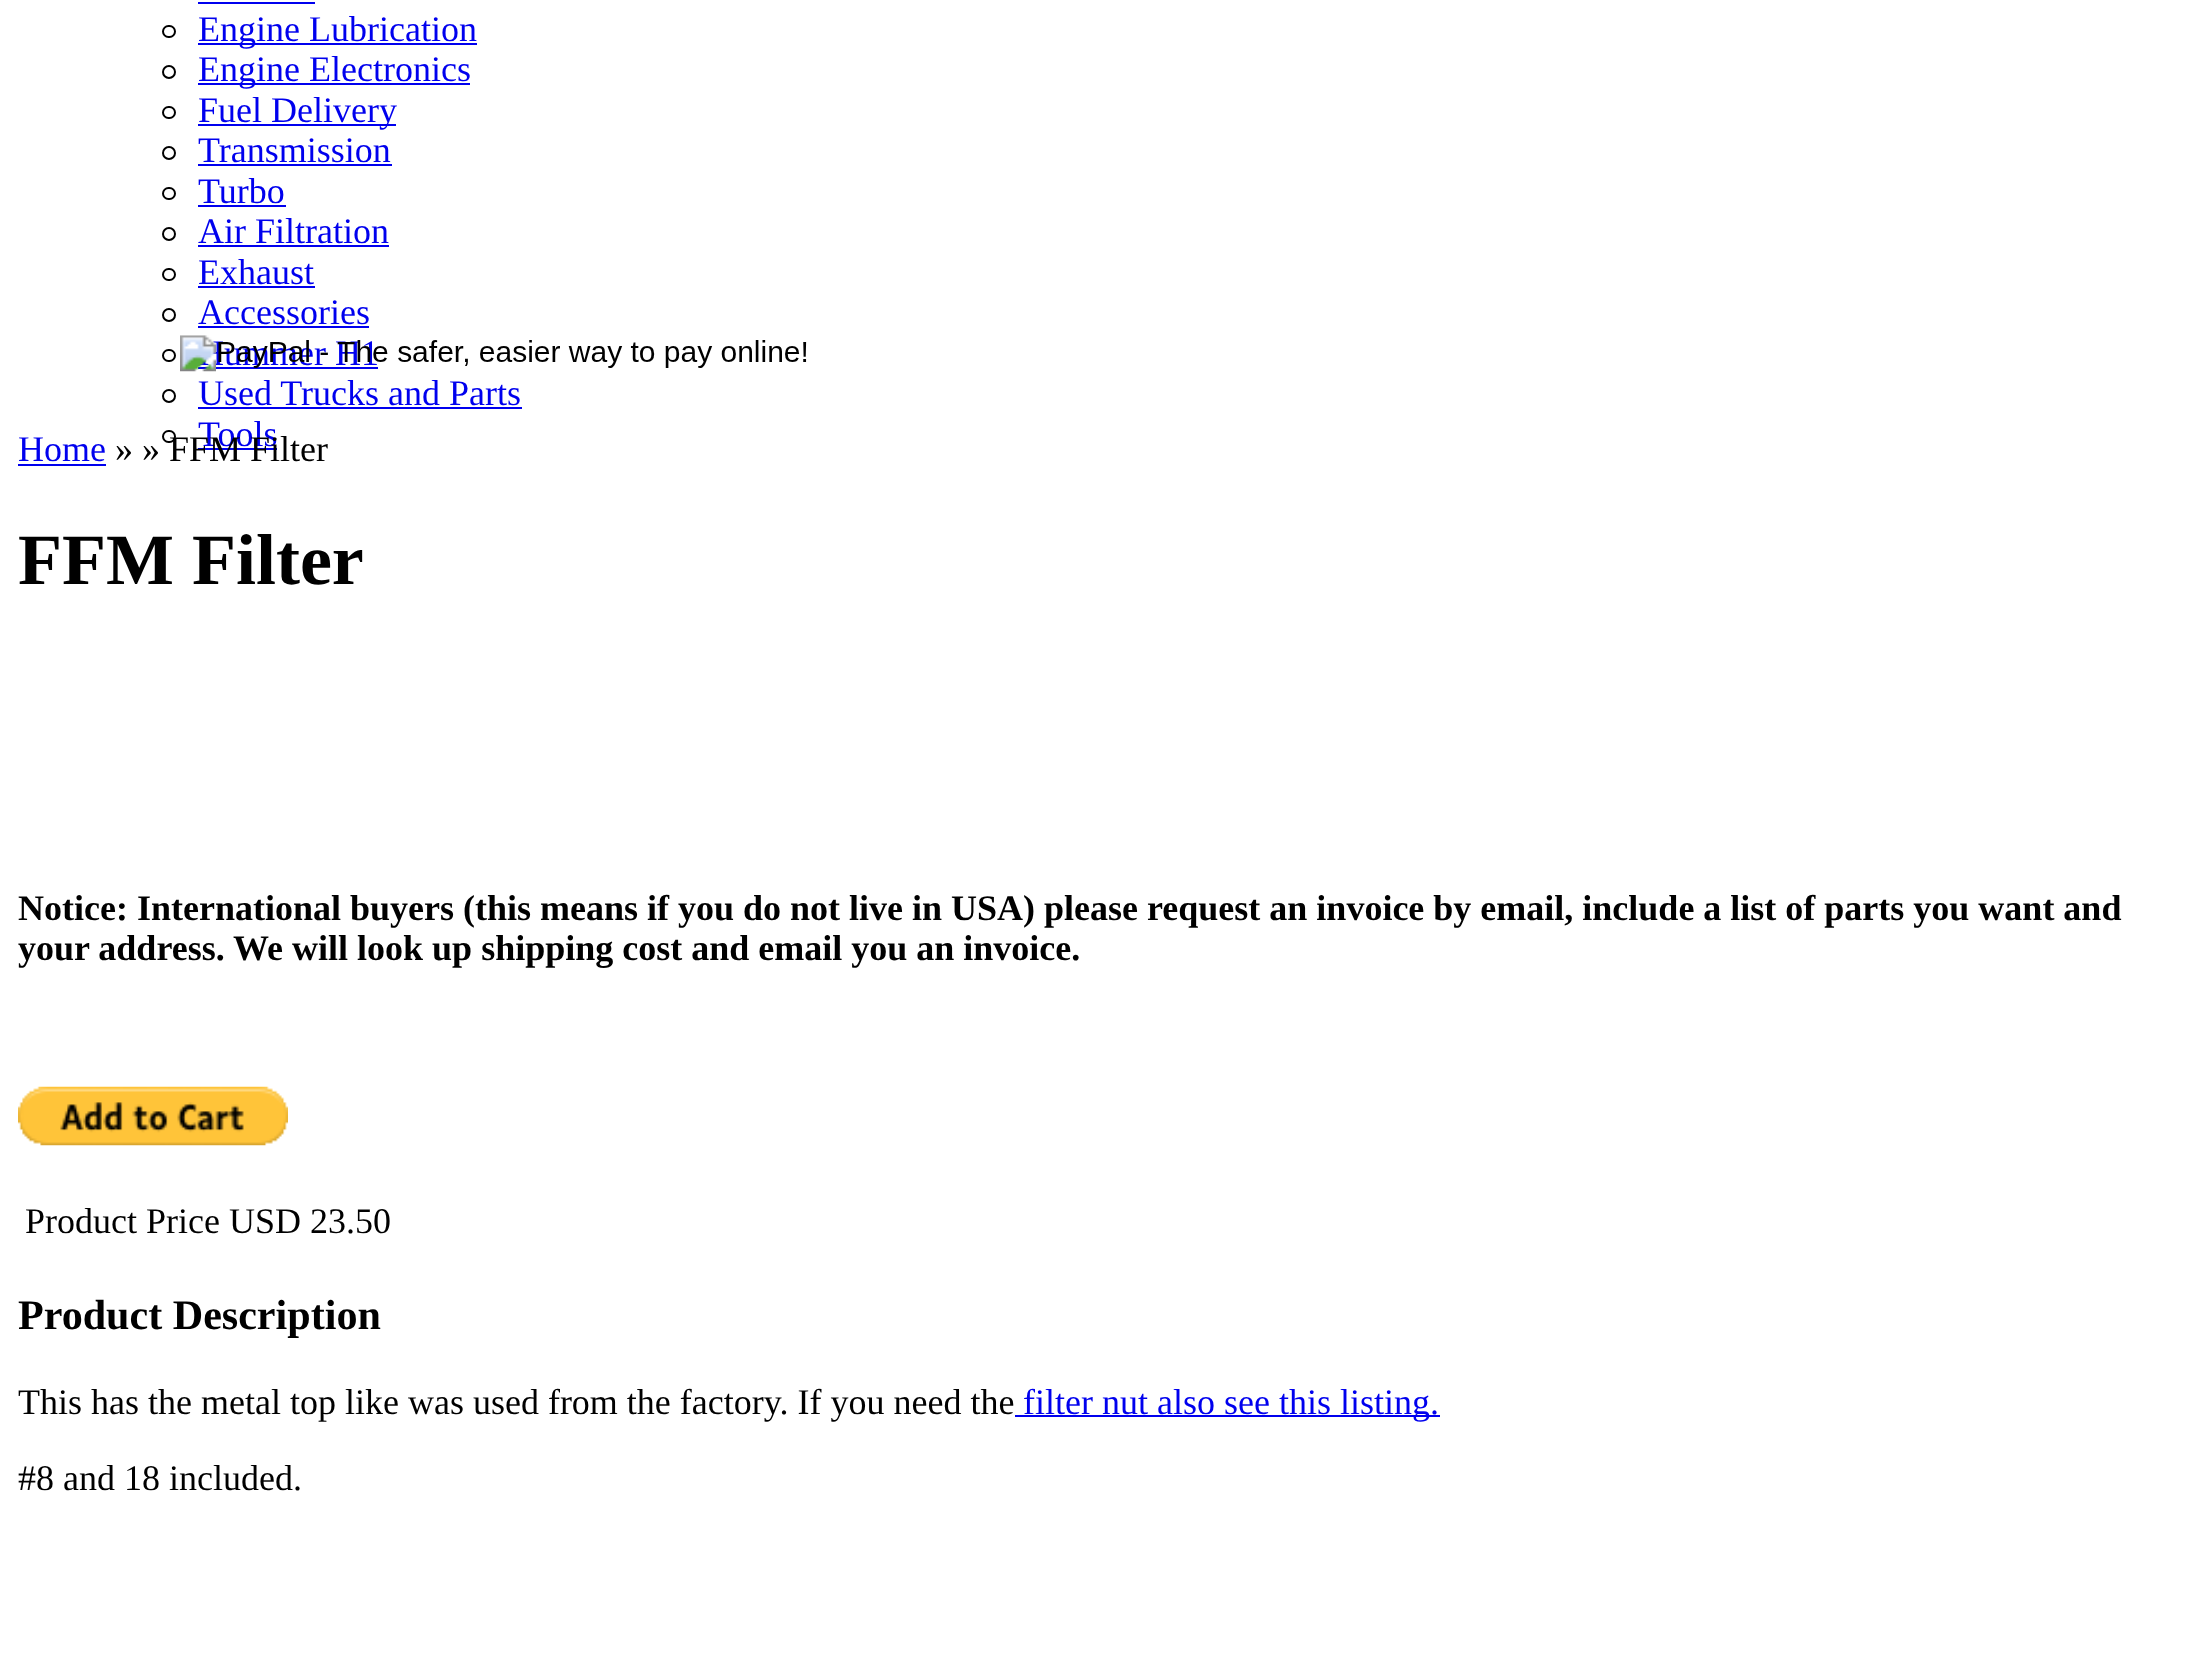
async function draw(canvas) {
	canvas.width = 2190;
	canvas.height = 1653;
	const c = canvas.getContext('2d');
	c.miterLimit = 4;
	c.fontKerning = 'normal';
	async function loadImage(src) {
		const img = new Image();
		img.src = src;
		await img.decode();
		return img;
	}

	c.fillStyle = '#fff';
	c.fillRect(0, 0, 2190, 1653);
	c.fillStyle = '#00e';
	c.fillRect(198, 2, 117, 2);
	c.beginPath();
	c.roundRect(163, 26, 12, 11, 5.5);
	c.strokeStyle = '#000';
	c.lineWidth = 2;
	c.stroke();
	c.fillRect(198, 43, 279, 2);
	c.font = '36px Liberation Serif';
	c.fillText('Engine Lubrication', 198, 41);
	c.beginPath();
	c.arc(169, 72, 6, 0, 2 * Math.PI);
	c.stroke();
	c.fillRect(198, 83, 272, 2);
	c.fillText('Engine Electronics', 198, 81);
	c.beginPath();
	c.roundRect(163, 107, 12, 11, 5.5);
	c.stroke();
	c.fillRect(198, 124, 198, 2);
	c.fillText('Fuel Delivery', 198, 122);
	c.beginPath();
	c.arc(169, 153, 6, 0, 2 * Math.PI);
	c.stroke();
	c.fillText('Transmission', 198, 162);
	c.fillRect(198, 164, 194, 2);
	c.beginPath();
	c.roundRect(163, 188, 12, 11, 5.5);
	c.stroke();
	c.fillText('Turbo', 198, 203);
	c.fillRect(198, 205, 88, 2);
	c.beginPath();
	c.arc(169, 234, 6, 0, 2 * Math.PI);
	c.stroke();
	c.fillText('Air Filtration', 198, 243);
	c.fillRect(198, 245, 191, 2);
	c.beginPath();
	c.roundRect(163, 269, 12, 11, 5.5);
	c.stroke();
	c.fillText('Exhaust', 198, 284);
	c.fillRect(198, 286, 117, 2);
	c.beginPath();
	c.arc(169, 315, 6, 0, 2 * Math.PI);
	c.stroke();
	c.fillText('Accessories', 198, 324);
	c.fillRect(198, 326, 171, 2);
	c.beginPath();
	c.roundRect(163, 350, 12, 11, 5.5);
	c.stroke();
	c.fillText('Hummer H1', 198, 365);
	c.fillRect(198, 367, 180, 2);
	c.beginPath();
	c.arc(169, 396, 6, 0, 2 * Math.PI);
	c.stroke();
	c.fillText('Used Trucks and Parts', 198, 405);
	c.fillRect(198, 407, 324, 2);
	c.beginPath();
	c.roundRect(163, 431, 12, 11, 5.5);
	c.stroke();
	c.fillText('Tools', 198, 446);
	c.fillRect(198, 448, 79, 2);
	c.drawImage(await loadImage('img1.png'), 180, 335, 627, 37);
	c.fillText('Home', 18, 461);
	c.fillRect(18, 464, 88, 2);
	c.fillStyle = '#000';
	c.fillText('» » FFM Filter', 115, 461);
	c.font = 'bold 72px Liberation Serif';
	c.fillText('FFM Filter', 18, 584);
	c.font = 'bold 36px Liberation Serif';
	c.fillText('Notice: International buyers (this means if you do not live in USA) please request an invoice by email, include a list of parts you want and', 18, 920);
	c.fillText('your address. We will look up shipping cost and email you an invoice.', 18, 960);
	c.drawImage(await loadImage('img2.png'), 18, 1086, 270, 60);
	c.font = '36px Liberation Serif';
	c.fillText('Product Price USD 23.50', 25, 1233);
	c.font = 'bold 42.1px Liberation Serif';
	c.fillText('Product Description', 18, 1329);
	c.font = '36px Liberation Serif';
	c.fillText('This has the metal top like was used from the factory. If you need the', 18, 1414);
	c.fillStyle = '#00e';
	c.fillRect(1015, 1415, 425, 2);
	c.fillText('filter nut also see this listing.', 1023, 1414);
	c.fillStyle = '#000';
	c.fillText('#8 and 18 included.', 18, 1490);
}

draw(document.querySelector('canvas'));
